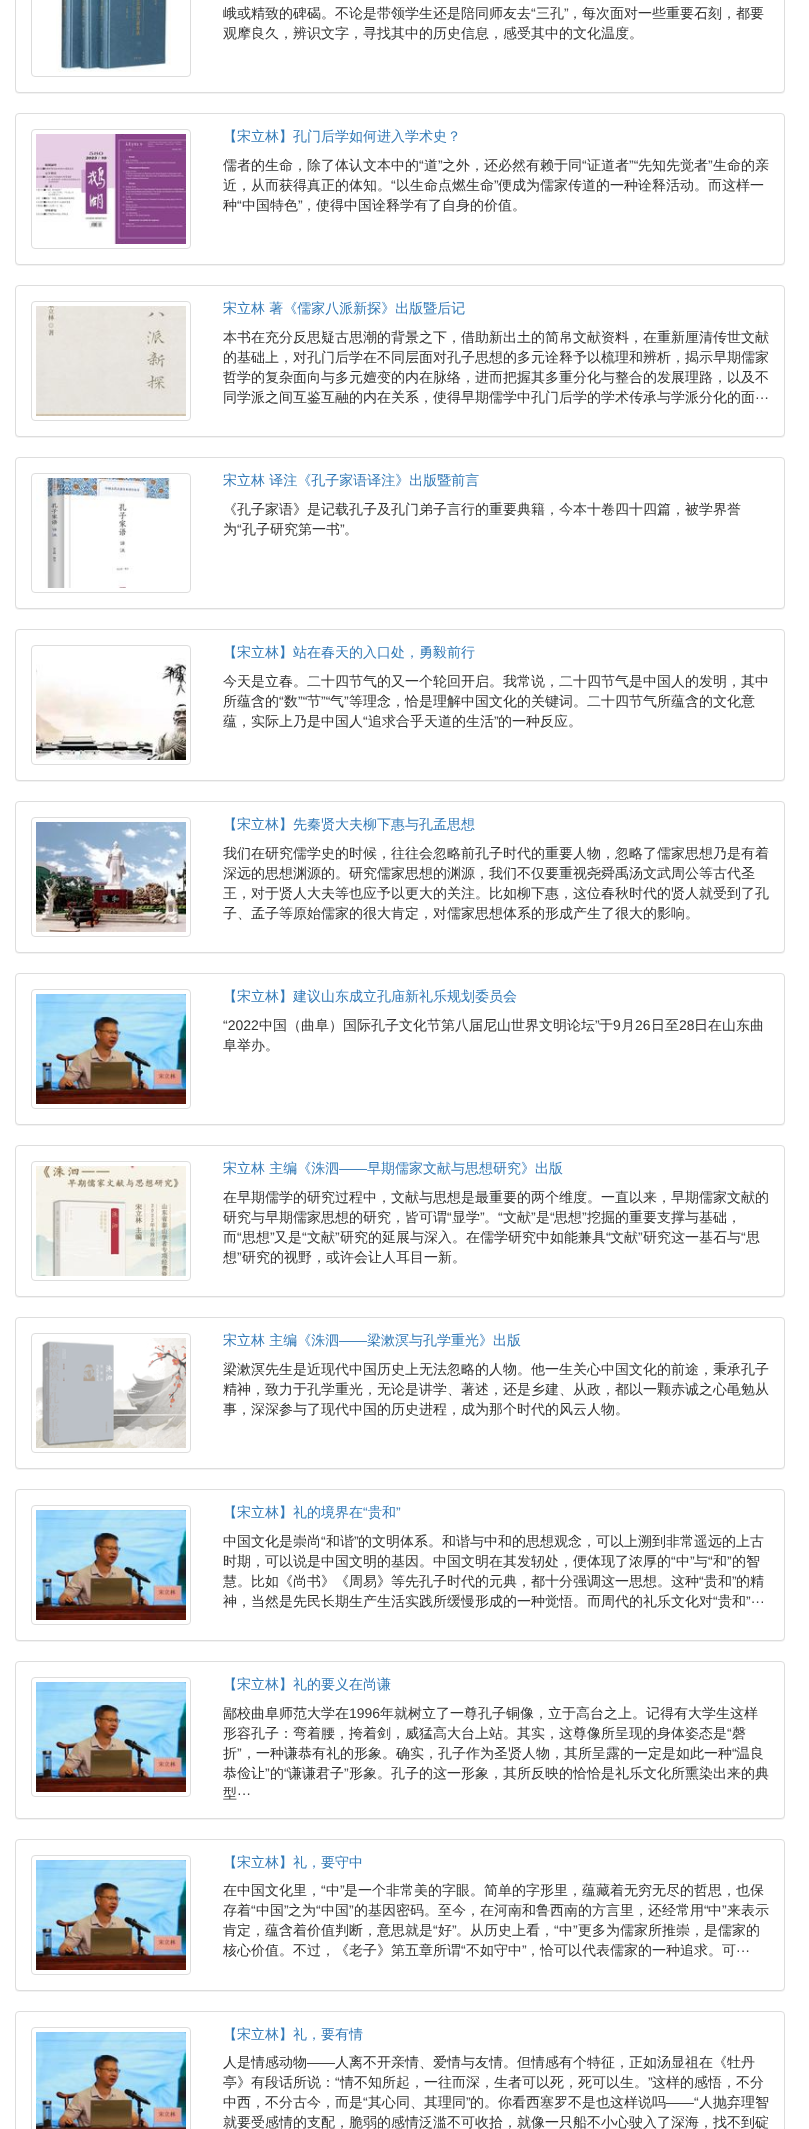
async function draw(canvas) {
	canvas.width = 809;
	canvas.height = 2129;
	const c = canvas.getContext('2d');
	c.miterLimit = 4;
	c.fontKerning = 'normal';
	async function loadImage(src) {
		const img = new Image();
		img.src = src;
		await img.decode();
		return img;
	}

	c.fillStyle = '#fff';
	c.fillRect(0, 0, 809, 2129);
	c.fillStyle = '#0000000d';
	c.filter = 'blur(0.5px)';
	c.beginPath();
	c.roundRect(15, -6, 770, 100, 4);
	c.fill();
	c.filter = 'none';
	c.fillStyle = '#fff';
	c.beginPath();
	c.roundRect(15.5, -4.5, 769, 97, 3.5);
	c.fill();
	c.strokeStyle = '#ddd';
	c.stroke();
	c.beginPath();
	c.roundRect(31.5, -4.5, 159, 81, 3.5);
	c.stroke();
	c.drawImage(await loadImage('img1.png'), 56, 0, 115, 72);
	c.font = '500 14px WenQuanYi Zen Hei';
	c.fillStyle = '#333';
	c.fillText('峨或精致的碑碣。不论是带领学生还是陪同师友去', 223, 18);
	c.font = '14px Liberation Sans';
	c.fillText('“', 531, 18);
	c.font = '500 14px WenQuanYi Zen Hei';
	c.fillText('三孔', 536, 18);
	c.font = '14px Liberation Sans';
	c.fillText('”', 564, 18);
	c.font = '500 14px WenQuanYi Zen Hei';
	c.fillText('，每次面对一些重要石刻，都要', 568, 18);
	c.fillText('观摩良久，辨识文字，寻找其中的历史信息，感受其中的文化温度。', 223, 38);
	c.fillStyle = '#0000000d';
	c.filter = 'blur(0.5px)';
	c.beginPath();
	c.roundRect(15, 114, 770, 152, 4);
	c.fill();
	c.filter = 'none';
	c.fillStyle = '#fff';
	c.beginPath();
	c.roundRect(15.5, 113.5, 769, 151, 3.5);
	c.fill();
	c.stroke();
	c.beginPath();
	c.roundRect(31.5, 129.5, 159, 119, 3.5);
	c.stroke();
	c.drawImage(await loadImage('img2.png'), 36, 134, 150, 110);
	c.fillStyle = '#337ab7';
	c.fillText('【宋立林】孔门后学如何进入学术史？', 223, 141);
	c.fillStyle = '#333';
	c.fillText('儒者的生命，除了体认文本中的', 223, 170);
	c.font = '14px Liberation Sans';
	c.fillText('“', 419, 170);
	c.font = '500 14px WenQuanYi Zen Hei';
	c.fillText('道', 424, 170);
	c.font = '14px Liberation Sans';
	c.fillText('”', 438, 170);
	c.font = '500 14px WenQuanYi Zen Hei';
	c.fillText('之外，还必然有赖于同', 442, 170);
	c.font = '14px Liberation Sans';
	c.fillText('“', 582, 170);
	c.font = '500 14px WenQuanYi Zen Hei';
	c.fillText('证道者', 587, 170);
	c.font = '14px Liberation Sans';
	c.fillText('”“', 629, 170);
	c.font = '500 14px WenQuanYi Zen Hei';
	c.fillText('先知先觉者', 638, 170);
	c.font = '14px Liberation Sans';
	c.fillText('”', 708, 170);
	c.font = '500 14px WenQuanYi Zen Hei';
	c.fillText('生命的亲', 713, 170);
	c.fillText('近，从而获得真正的体知。', 223, 190);
	c.font = '14px Liberation Sans';
	c.fillText('“', 391, 190);
	c.font = '500 14px WenQuanYi Zen Hei';
	c.fillText('以生命点燃生命', 396, 190);
	c.font = '14px Liberation Sans';
	c.fillText('”', 494, 190);
	c.font = '500 14px WenQuanYi Zen Hei';
	c.fillText('便成为儒家传道的一种诠释活动。而这样一', 498, 190);
	c.fillText('种', 223, 210);
	c.font = '14px Liberation Sans';
	c.fillText('“', 237, 210);
	c.font = '500 14px WenQuanYi Zen Hei';
	c.fillText('中国特色', 242, 210);
	c.font = '14px Liberation Sans';
	c.fillText('”', 298, 210);
	c.font = '500 14px WenQuanYi Zen Hei';
	c.fillText('，使得中国诠释学有了自身的价值。', 302, 210);
	c.fillStyle = '#0000000d';
	c.filter = 'blur(0.5px)';
	c.beginPath();
	c.roundRect(15, 286, 770, 152, 4);
	c.fill();
	c.filter = 'none';
	c.fillStyle = '#fff';
	c.beginPath();
	c.roundRect(15.5, 285.5, 769, 151, 3.5);
	c.fill();
	c.stroke();
	c.beginPath();
	c.roundRect(31.5, 301.5, 159, 119, 3.5);
	c.stroke();
	c.drawImage(await loadImage('img3.png'), 36, 306, 150, 110);
	c.fillStyle = '#337ab7';
	c.fillText('宋立林 著《儒家八派新探》出版暨后记', 223, 313);
	c.fillStyle = '#333';
	for (const [text, x, y] of [
		['本书在充分反思疑古思潮的背景之下，借助新出土的简帛文献资料，在重新厘清传世文献', 223, 342],
		['的基础上，对孔门后学在不同层面对孔子思想的多元诠释予以梳理和辨析，揭示早期儒家', 223, 362],
		['哲学的复杂面向与多元嬗变的内在脉络，进而把握其多重分化与整合的发展理路，以及不', 223, 382],
		['同学派之间互鉴互融的内在关系，使得早期儒学中孔门后学的学术传承与学派分化的面', 223, 402],
	]) {
		c.fillText(text, x, y);
	}
	c.font = '14px Liberation Sans';
	c.fillText('···', 755, 402);
	c.fillStyle = '#0000000d';
	c.filter = 'blur(0.5px)';
	c.beginPath();
	c.roundRect(15, 458, 770, 152, 4);
	c.fill();
	c.filter = 'none';
	c.fillStyle = '#fff';
	c.beginPath();
	c.roundRect(15.5, 457.5, 769, 151, 3.5);
	c.fill();
	c.stroke();
	c.beginPath();
	c.roundRect(31.5, 473.5, 159, 119, 3.5);
	c.stroke();
	c.drawImage(await loadImage('img4.png'), 36, 478, 135, 110);
	c.font = '500 14px WenQuanYi Zen Hei';
	c.fillStyle = '#337ab7';
	c.fillText('宋立林 译注《孔子家语译注》出版暨前言', 223, 485);
	c.fillStyle = '#333';
	c.fillText('《孔子家语》是记载孔子及孔门弟子言行的重要典籍，今本十卷四十四篇，被学界誉', 223, 514);
	c.fillText('为', 223, 534);
	c.font = '14px Liberation Sans';
	c.fillText('“', 237, 534);
	c.font = '500 14px WenQuanYi Zen Hei';
	c.fillText('孔子研究第一书', 242, 534);
	c.font = '14px Liberation Sans';
	c.fillText('”', 340, 534);
	c.font = '500 14px WenQuanYi Zen Hei';
	c.fillText('。', 344, 534);
	c.fillStyle = '#0000000d';
	c.filter = 'blur(0.5px)';
	c.beginPath();
	c.roundRect(15, 630, 770, 152, 4);
	c.fill();
	c.filter = 'none';
	c.fillStyle = '#fff';
	c.beginPath();
	c.roundRect(15.5, 629.5, 769, 151, 3.5);
	c.fill();
	c.stroke();
	c.beginPath();
	c.roundRect(31.5, 645.5, 159, 119, 3.5);
	c.stroke();
	c.drawImage(await loadImage('img5.png'), 36, 658, 150, 102);
	c.fillStyle = '#337ab7';
	c.fillText('【宋立林】站在春天的入口处，勇毅前行', 223, 657);
	c.fillStyle = '#333';
	c.fillText('今天是立春。二十四节气的又一个轮回开启。我常说，二十四节气是中国人的发明，其中', 223, 686);
	c.fillText('所蕴含的', 223, 706);
	c.font = '14px Liberation Sans';
	c.fillText('“', 279, 706);
	c.font = '500 14px WenQuanYi Zen Hei';
	c.fillText('数', 284, 706);
	c.font = '14px Liberation Sans';
	c.fillText('”“', 298, 706);
	c.font = '500 14px WenQuanYi Zen Hei';
	c.fillText('节', 307, 706);
	c.font = '14px Liberation Sans';
	c.fillText('”“', 321, 706);
	c.font = '500 14px WenQuanYi Zen Hei';
	c.fillText('气', 330, 706);
	c.font = '14px Liberation Sans';
	c.fillText('”', 344, 706);
	c.font = '500 14px WenQuanYi Zen Hei';
	c.fillText('等理念，恰是理解中国文化的关键词。二十四节气所蕴含的文化意', 349, 706);
	c.fillText('蕴，实际上乃是中国人', 223, 726);
	c.font = '14px Liberation Sans';
	c.fillText('“', 363, 726);
	c.font = '500 14px WenQuanYi Zen Hei';
	c.fillText('追求合乎天道的生活', 368, 726);
	c.font = '14px Liberation Sans';
	c.fillText('”', 494, 726);
	c.font = '500 14px WenQuanYi Zen Hei';
	c.fillText('的一种反应。', 498, 726);
	c.fillStyle = '#0000000d';
	c.filter = 'blur(0.5px)';
	c.beginPath();
	c.roundRect(15, 802, 770, 152, 4);
	c.fill();
	c.filter = 'none';
	c.fillStyle = '#fff';
	c.beginPath();
	c.roundRect(15.5, 801.5, 769, 151, 3.5);
	c.fill();
	c.stroke();
	c.beginPath();
	c.roundRect(31.5, 817.5, 159, 119, 3.5);
	c.stroke();
	c.drawImage(await loadImage('img6.png'), 36, 822, 150, 110);
	c.fillStyle = '#337ab7';
	c.fillText('【宋立林】先秦贤大夫柳下惠与孔孟思想', 223, 829);
	c.fillStyle = '#333';
	for (const [text, x, y] of [
		['我们在研究儒学史的时候，往往会忽略前孔子时代的重要人物，忽略了儒家思想乃是有着', 223, 858],
		['深远的思想渊源的。研究儒家思想的渊源，我们不仅要重视尧舜禹汤文武周公等古代圣', 223, 878],
		['王，对于贤人大夫等也应予以更大的关注。比如柳下惠，这位春秋时代的贤人就受到了孔', 223, 898],
		['子、孟子等原始儒家的很大肯定，对儒家思想体系的形成产生了很大的影响。', 223, 918],
	]) {
		c.fillText(text, x, y);
	}
	c.fillStyle = '#0000000d';
	c.filter = 'blur(0.5px)';
	c.beginPath();
	c.roundRect(15, 974, 770, 152, 4);
	c.fill();
	c.filter = 'none';
	c.fillStyle = '#fff';
	c.beginPath();
	c.roundRect(15.5, 973.5, 769, 151, 3.5);
	c.fill();
	c.stroke();
	c.beginPath();
	c.roundRect(31.5, 989.5, 159, 119, 3.5);
	c.stroke();
	c.drawImage(await loadImage('img7.png'), 36, 994, 150, 110);
	c.fillStyle = '#337ab7';
	c.fillText('【宋立林】建议山东成立孔庙新礼乐规划委员会', 223, 1001);
	c.font = '14px Liberation Sans';
	c.fillStyle = '#333';
	c.fillText('“2022', 223, 1030);
	c.font = '500 14px WenQuanYi Zen Hei';
	c.fillText('中国（曲阜）国际孔子文化节第八届尼山世界文明论坛', 259, 1030);
	c.font = '14px Liberation Sans';
	c.fillText('”', 595, 1030);
	c.font = '500 14px WenQuanYi Zen Hei';
	c.fillText('于', 599, 1030);
	c.font = '14px Liberation Sans';
	c.fillText('9', 613, 1030);
	c.font = '500 14px WenQuanYi Zen Hei';
	c.fillText('月', 621, 1030);
	c.font = '14px Liberation Sans';
	c.fillText('26', 635, 1030);
	c.font = '500 14px WenQuanYi Zen Hei';
	c.fillText('日至', 651, 1030);
	c.font = '14px Liberation Sans';
	c.fillText('28', 679, 1030);
	c.font = '500 14px WenQuanYi Zen Hei';
	c.fillText('日在山东曲', 694, 1030);
	c.fillText('阜举办。', 223, 1050);
	c.fillStyle = '#0000000d';
	c.filter = 'blur(0.5px)';
	c.beginPath();
	c.roundRect(15, 1146, 770, 152, 4);
	c.fill();
	c.filter = 'none';
	c.fillStyle = '#fff';
	c.beginPath();
	c.roundRect(15.5, 1145.5, 769, 151, 3.5);
	c.fill();
	c.stroke();
	c.beginPath();
	c.roundRect(31.5, 1161.5, 159, 119, 3.5);
	c.stroke();
	c.drawImage(await loadImage('img8.png'), 36, 1166, 150, 110);
	c.fillStyle = '#337ab7';
	c.fillText('宋立林 主编《洙泗', 223, 1173);
	c.font = '14px Liberation Sans';
	c.fillText('——', 339, 1173);
	c.font = '500 14px WenQuanYi Zen Hei';
	c.fillText('早期儒家文献与思想研究》出版', 367, 1173);
	c.fillStyle = '#333';
	c.fillText('在早期儒学的研究过程中，文献与思想是最重要的两个维度。一直以来，早期儒家文献的', 223, 1202);
	c.fillText('研究与早期儒家思想的研究，皆可谓', 223, 1222);
	c.font = '14px Liberation Sans';
	c.fillText('“', 447, 1222);
	c.font = '500 14px WenQuanYi Zen Hei';
	c.fillText('显学', 452, 1222);
	c.font = '14px Liberation Sans';
	c.fillText('”', 480, 1222);
	c.fillText('“', 498, 1222);
	c.font = '500 14px WenQuanYi Zen Hei';
	c.fillText('文献', 503, 1222);
	c.font = '14px Liberation Sans';
	c.fillText('”', 531, 1222);
	c.font = '500 14px WenQuanYi Zen Hei';
	c.fillText('是', 536, 1222);
	c.font = '14px Liberation Sans';
	c.fillText('“', 550, 1222);
	c.font = '500 14px WenQuanYi Zen Hei';
	c.fillText('思想', 554, 1222);
	c.font = '14px Liberation Sans';
	c.fillText('”', 582, 1222);
	c.font = '500 14px WenQuanYi Zen Hei';
	for (const [text, x, y] of [
		['挖掘的重要支撑与基础，', 587, 1222],
		['。', 484, 1222],
		['而', 223, 1242],
	]) {
		c.fillText(text, x, y);
	}
	c.font = '14px Liberation Sans';
	c.fillText('“', 237, 1242);
	c.font = '500 14px WenQuanYi Zen Hei';
	c.fillText('思想', 242, 1242);
	c.font = '14px Liberation Sans';
	c.fillText('”', 270, 1242);
	c.font = '500 14px WenQuanYi Zen Hei';
	c.fillText('又是', 274, 1242);
	c.font = '14px Liberation Sans';
	c.fillText('“', 302, 1242);
	c.font = '500 14px WenQuanYi Zen Hei';
	c.fillText('文献', 307, 1242);
	c.font = '14px Liberation Sans';
	c.fillText('”', 335, 1242);
	c.font = '500 14px WenQuanYi Zen Hei';
	c.fillText('研究的延展与深入。在儒学研究中如能兼具', 340, 1242);
	c.font = '14px Liberation Sans';
	c.fillText('“', 606, 1242);
	c.font = '500 14px WenQuanYi Zen Hei';
	c.fillText('文献', 610, 1242);
	c.font = '14px Liberation Sans';
	c.fillText('”', 638, 1242);
	c.font = '500 14px WenQuanYi Zen Hei';
	c.fillText('研究这一基石与', 643, 1242);
	c.font = '14px Liberation Sans';
	c.fillText('“', 741, 1242);
	c.font = '500 14px WenQuanYi Zen Hei';
	c.fillText('思', 746, 1242);
	c.fillText('想', 223, 1262);
	c.font = '14px Liberation Sans';
	c.fillText('”', 237, 1262);
	c.font = '500 14px WenQuanYi Zen Hei';
	c.fillText('研究的视野，或许会让人耳目一新。', 242, 1262);
	c.fillStyle = '#0000000d';
	c.filter = 'blur(0.5px)';
	c.beginPath();
	c.roundRect(15, 1318, 770, 152, 4);
	c.fill();
	c.filter = 'none';
	c.fillStyle = '#fff';
	c.beginPath();
	c.roundRect(15.5, 1317.5, 769, 151, 3.5);
	c.fill();
	c.stroke();
	c.beginPath();
	c.roundRect(31.5, 1333.5, 159, 119, 3.5);
	c.stroke();
	c.drawImage(await loadImage('img9.png'), 36, 1338, 150, 110);
	c.fillStyle = '#337ab7';
	c.fillText('宋立林 主编《洙泗', 223, 1345);
	c.font = '14px Liberation Sans';
	c.fillText('——', 339, 1345);
	c.font = '500 14px WenQuanYi Zen Hei';
	c.fillText('梁漱溟与孔学重光》出版', 367, 1345);
	c.fillStyle = '#333';
	for (const [text, x, y] of [
		['梁漱溟先生是近现代中国历史上无法忽略的人物。他一生关心中国文化的前途，秉承孔子', 223, 1374],
		['精神，致力于孔学重光，无论是讲学、著述，还是乡建、从政，都以一颗赤诚之心黾勉从', 223, 1394],
		['事，深深参与了现代中国的历史进程，成为那个时代的风云人物。', 223, 1414],
	]) {
		c.fillText(text, x, y);
	}
	c.fillStyle = '#0000000d';
	c.filter = 'blur(0.5px)';
	c.beginPath();
	c.roundRect(15, 1490, 770, 152, 4);
	c.fill();
	c.filter = 'none';
	c.fillStyle = '#fff';
	c.beginPath();
	c.roundRect(15.5, 1489.5, 769, 151, 3.5);
	c.fill();
	c.stroke();
	c.beginPath();
	c.roundRect(31.5, 1505.5, 159, 119, 3.5);
	c.stroke();
	c.drawImage(await loadImage('img7.png'), 36, 1510, 150, 110);
	c.fillStyle = '#337ab7';
	c.fillText('【宋立林】礼的境界在', 223, 1517);
	c.font = '14px Liberation Sans';
	c.fillText('“', 363, 1517);
	c.font = '500 14px WenQuanYi Zen Hei';
	c.fillText('贵和', 368, 1517);
	c.font = '14px Liberation Sans';
	c.fillText('”', 396, 1517);
	c.font = '500 14px WenQuanYi Zen Hei';
	c.fillStyle = '#333';
	c.fillText('中国文化是崇尚', 223, 1546);
	c.font = '14px Liberation Sans';
	c.fillText('“', 321, 1546);
	c.font = '500 14px WenQuanYi Zen Hei';
	c.fillText('和谐', 326, 1546);
	c.font = '14px Liberation Sans';
	c.fillText('”', 354, 1546);
	c.font = '500 14px WenQuanYi Zen Hei';
	c.fillText('的文明体系。和谐与中和的思想观念，可以上溯到非常遥远的上古', 358, 1546);
	c.fillText('时期，可以说是中国文明的基因。中国文明在其发轫处，便体现了浓厚的', 223, 1566);
	c.font = '14px Liberation Sans';
	c.fillText('“', 671, 1566);
	c.font = '500 14px WenQuanYi Zen Hei';
	c.fillText('中', 676, 1566);
	c.font = '14px Liberation Sans';
	c.fillText('”', 690, 1566);
	c.font = '500 14px WenQuanYi Zen Hei';
	c.fillText('与', 694, 1566);
	c.font = '14px Liberation Sans';
	c.fillText('“', 708, 1566);
	c.font = '500 14px WenQuanYi Zen Hei';
	c.fillText('和', 713, 1566);
	c.font = '14px Liberation Sans';
	c.fillText('”', 727, 1566);
	c.font = '500 14px WenQuanYi Zen Hei';
	c.fillText('的智', 732, 1566);
	c.fillText('慧。比如《尚书》《周易》等先孔子时代的元典，都十分强调这一思想。这种', 223, 1586);
	c.font = '14px Liberation Sans';
	c.fillText('“', 699, 1586);
	c.font = '500 14px WenQuanYi Zen Hei';
	c.fillText('贵和', 704, 1586);
	c.font = '14px Liberation Sans';
	c.fillText('”', 732, 1586);
	c.font = '500 14px WenQuanYi Zen Hei';
	c.fillText('的精', 736, 1586);
	c.fillText('神，当然是先民长期生产生活实践所缓慢形成的一种觉悟。而周代的礼乐文化对', 223, 1606);
	c.font = '14px Liberation Sans';
	c.fillText('“', 713, 1606);
	c.font = '500 14px WenQuanYi Zen Hei';
	c.fillText('贵和', 718, 1606);
	c.font = '14px Liberation Sans';
	c.fillText('”···', 746, 1606);
	c.fillStyle = '#0000000d';
	c.filter = 'blur(0.5px)';
	c.beginPath();
	c.roundRect(15, 1662, 770, 158, 4);
	c.fill();
	c.filter = 'none';
	c.fillStyle = '#fff';
	c.beginPath();
	c.roundRect(15.5, 1661.5, 769, 157, 3.5);
	c.fill();
	c.stroke();
	c.beginPath();
	c.roundRect(31.5, 1677.5, 159, 119, 3.5);
	c.stroke();
	c.drawImage(await loadImage('img7.png'), 36, 1682, 150, 110);
	c.font = '500 14px WenQuanYi Zen Hei';
	c.fillStyle = '#337ab7';
	c.fillText('【宋立林】礼的要义在尚谦', 223, 1689);
	c.fillStyle = '#333';
	c.fillText('鄙校曲阜师范大学在', 223, 1718);
	c.font = '14px Liberation Sans';
	c.fillText('1996', 349, 1718);
	c.font = '500 14px WenQuanYi Zen Hei';
	c.fillText('年就树立了一尊孔子铜像，立于高台之上。记得有大学生这样', 380, 1718);
	c.fillText('形容孔子：弯着腰，挎着剑，威猛高大台上站。其实，这尊像所呈现的身体姿态是', 223, 1738);
	c.font = '14px Liberation Sans';
	c.fillText('“', 727, 1738);
	c.font = '500 14px WenQuanYi Zen Hei';
	c.fillText('磬', 732, 1738);
	c.fillText('折', 223, 1758);
	c.font = '14px Liberation Sans';
	c.fillText('”', 237, 1758);
	c.font = '500 14px WenQuanYi Zen Hei';
	c.fillText('，一种谦恭有礼的形象。确实，孔子作为圣贤人物，其所呈露的一定是如此一种', 242, 1758);
	c.font = '14px Liberation Sans';
	c.fillText('“', 732, 1758);
	c.font = '500 14px WenQuanYi Zen Hei';
	c.fillText('温良', 736, 1758);
	c.fillText('恭俭让', 223, 1778);
	c.font = '14px Liberation Sans';
	c.fillText('”', 265, 1778);
	c.font = '500 14px WenQuanYi Zen Hei';
	c.fillText('的', 270, 1778);
	c.font = '14px Liberation Sans';
	c.fillText('“', 284, 1778);
	c.font = '500 14px WenQuanYi Zen Hei';
	c.fillText('谦谦君子', 288, 1778);
	c.font = '14px Liberation Sans';
	c.fillText('”', 344, 1778);
	c.font = '500 14px WenQuanYi Zen Hei';
	c.fillText('形象。孔子的这一形象，其所反映的恰恰是礼乐文化所熏染出来的典', 349, 1778);
	c.fillText('型', 223, 1798);
	c.font = '14px Liberation Sans';
	c.fillText('···', 237, 1798);
	c.fillStyle = '#0000000d';
	c.filter = 'blur(0.5px)';
	c.beginPath();
	c.roundRect(15, 1840, 770, 152, 4);
	c.fill();
	c.filter = 'none';
	c.fillStyle = '#fff';
	c.beginPath();
	c.roundRect(15.5, 1839.5, 769, 151, 3.5);
	c.fill();
	c.stroke();
	c.beginPath();
	c.roundRect(31.5, 1855.5, 159, 119, 3.5);
	c.stroke();
	c.drawImage(await loadImage('img7.png'), 36, 1860, 150, 110);
	c.font = '500 14px WenQuanYi Zen Hei';
	c.fillStyle = '#337ab7';
	c.fillText('【宋立林】礼，要守中', 223, 1867);
	c.fillStyle = '#333';
	c.fillText('在中国文化里，', 223, 1895);
	c.font = '14px Liberation Sans';
	c.fillText('“', 321, 1895);
	c.font = '500 14px WenQuanYi Zen Hei';
	c.fillText('中', 326, 1895);
	c.font = '14px Liberation Sans';
	c.fillText('”', 340, 1895);
	c.font = '500 14px WenQuanYi Zen Hei';
	c.fillText('是一个非常美的字眼。简单的字形里，蕴藏着无穷无尽的哲思，也保', 344, 1895);
	c.fillText('存着', 223, 1915);
	c.font = '14px Liberation Sans';
	c.fillText('“', 251, 1915);
	c.font = '500 14px WenQuanYi Zen Hei';
	c.fillText('中国', 256, 1915);
	c.font = '14px Liberation Sans';
	c.fillText('”', 284, 1915);
	c.font = '500 14px WenQuanYi Zen Hei';
	c.fillText('之为', 288, 1915);
	c.font = '14px Liberation Sans';
	c.fillText('“', 316, 1915);
	c.font = '500 14px WenQuanYi Zen Hei';
	c.fillText('中国', 321, 1915);
	c.font = '14px Liberation Sans';
	c.fillText('”', 349, 1915);
	c.font = '500 14px WenQuanYi Zen Hei';
	c.fillText('的基因密码。至今，在河南和鲁西南的方言里，还经常用', 354, 1915);
	c.font = '14px Liberation Sans';
	c.fillText('“', 704, 1915);
	c.font = '500 14px WenQuanYi Zen Hei';
	c.fillText('中', 708, 1915);
	c.font = '14px Liberation Sans';
	c.fillText('”', 722, 1915);
	c.font = '500 14px WenQuanYi Zen Hei';
	c.fillText('来表示', 727, 1915);
	c.fillText('肯定，蕴含着价值判断，意思就是', 223, 1935);
	c.font = '14px Liberation Sans';
	c.fillText('“', 433, 1935);
	c.font = '500 14px WenQuanYi Zen Hei';
	c.fillText('好', 438, 1935);
	c.font = '14px Liberation Sans';
	c.fillText('”', 452, 1935);
	c.font = '500 14px WenQuanYi Zen Hei';
	c.fillText('。从历史上看，', 456, 1935);
	c.font = '14px Liberation Sans';
	c.fillText('“', 554, 1935);
	c.font = '500 14px WenQuanYi Zen Hei';
	c.fillText('中', 559, 1935);
	c.font = '14px Liberation Sans';
	c.fillText('”', 573, 1935);
	c.font = '500 14px WenQuanYi Zen Hei';
	c.fillText('更多为儒家所推崇，是儒家的', 578, 1935);
	c.fillText('核心价值。不过，《老子》第五章所谓', 223, 1955);
	c.font = '14px Liberation Sans';
	c.fillText('“', 461, 1955);
	c.font = '500 14px WenQuanYi Zen Hei';
	c.fillText('不如守中', 466, 1955);
	c.font = '14px Liberation Sans';
	c.fillText('”', 522, 1955);
	c.font = '500 14px WenQuanYi Zen Hei';
	c.fillText('，恰可以代表儒家的一种追求。可', 526, 1955);
	c.font = '14px Liberation Sans';
	c.fillText('···', 736, 1955);
	c.beginPath();
	c.roundRect(15.5, 2011.5, 769, 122, 3.5);
	c.stroke();
	c.beginPath();
	c.roundRect(31.5, 2027.5, 159, 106, 3.5);
	c.stroke();
	c.drawImage(await loadImage('img10.png'), 36, 2032, 150, 97);
	c.font = '500 14px WenQuanYi Zen Hei';
	c.fillStyle = '#337ab7';
	c.fillText('【宋立林】礼，要有情', 223, 2039);
	c.fillStyle = '#333';
	c.fillText('人是情感动物', 223, 2067);
	c.font = '14px Liberation Sans';
	c.fillText('——', 307, 2067);
	c.font = '500 14px WenQuanYi Zen Hei';
	c.fillText('人离不开亲情、爱情与友情。但情感有个特征，正如汤显祖在《牡丹', 335, 2067);
	c.fillText('亭》有段话所说：', 223, 2087);
	c.font = '14px Liberation Sans';
	c.fillText('“', 335, 2087);
	c.font = '500 14px WenQuanYi Zen Hei';
	c.fillText('情不知所起，一往而深，生者可以死，死可以生。', 340, 2087);
	c.font = '14px Liberation Sans';
	c.fillText('”', 648, 2087);
	c.font = '500 14px WenQuanYi Zen Hei';
	c.fillText('这样的感悟，不分', 652, 2087);
	c.fillText('中西，不分古今，而是', 223, 2107);
	c.font = '14px Liberation Sans';
	c.fillText('“', 363, 2107);
	c.font = '500 14px WenQuanYi Zen Hei';
	c.fillText('其心同、其理同', 368, 2107);
	c.font = '14px Liberation Sans';
	c.fillText('”', 466, 2107);
	c.font = '500 14px WenQuanYi Zen Hei';
	c.fillText('的。你看西塞罗不是也这样说吗', 470, 2107);
	c.font = '14px Liberation Sans';
	c.fillText('——“', 666, 2107);
	c.font = '500 14px WenQuanYi Zen Hei';
	c.fillText('人抛弃理智', 699, 2107);
	c.fillText('就要受感情的支配，脆弱的感情泛滥不可收拾，就像一只船不小心驶入了深海，找不到碇', 223, 2127);
}

draw(document.querySelector('canvas'));
